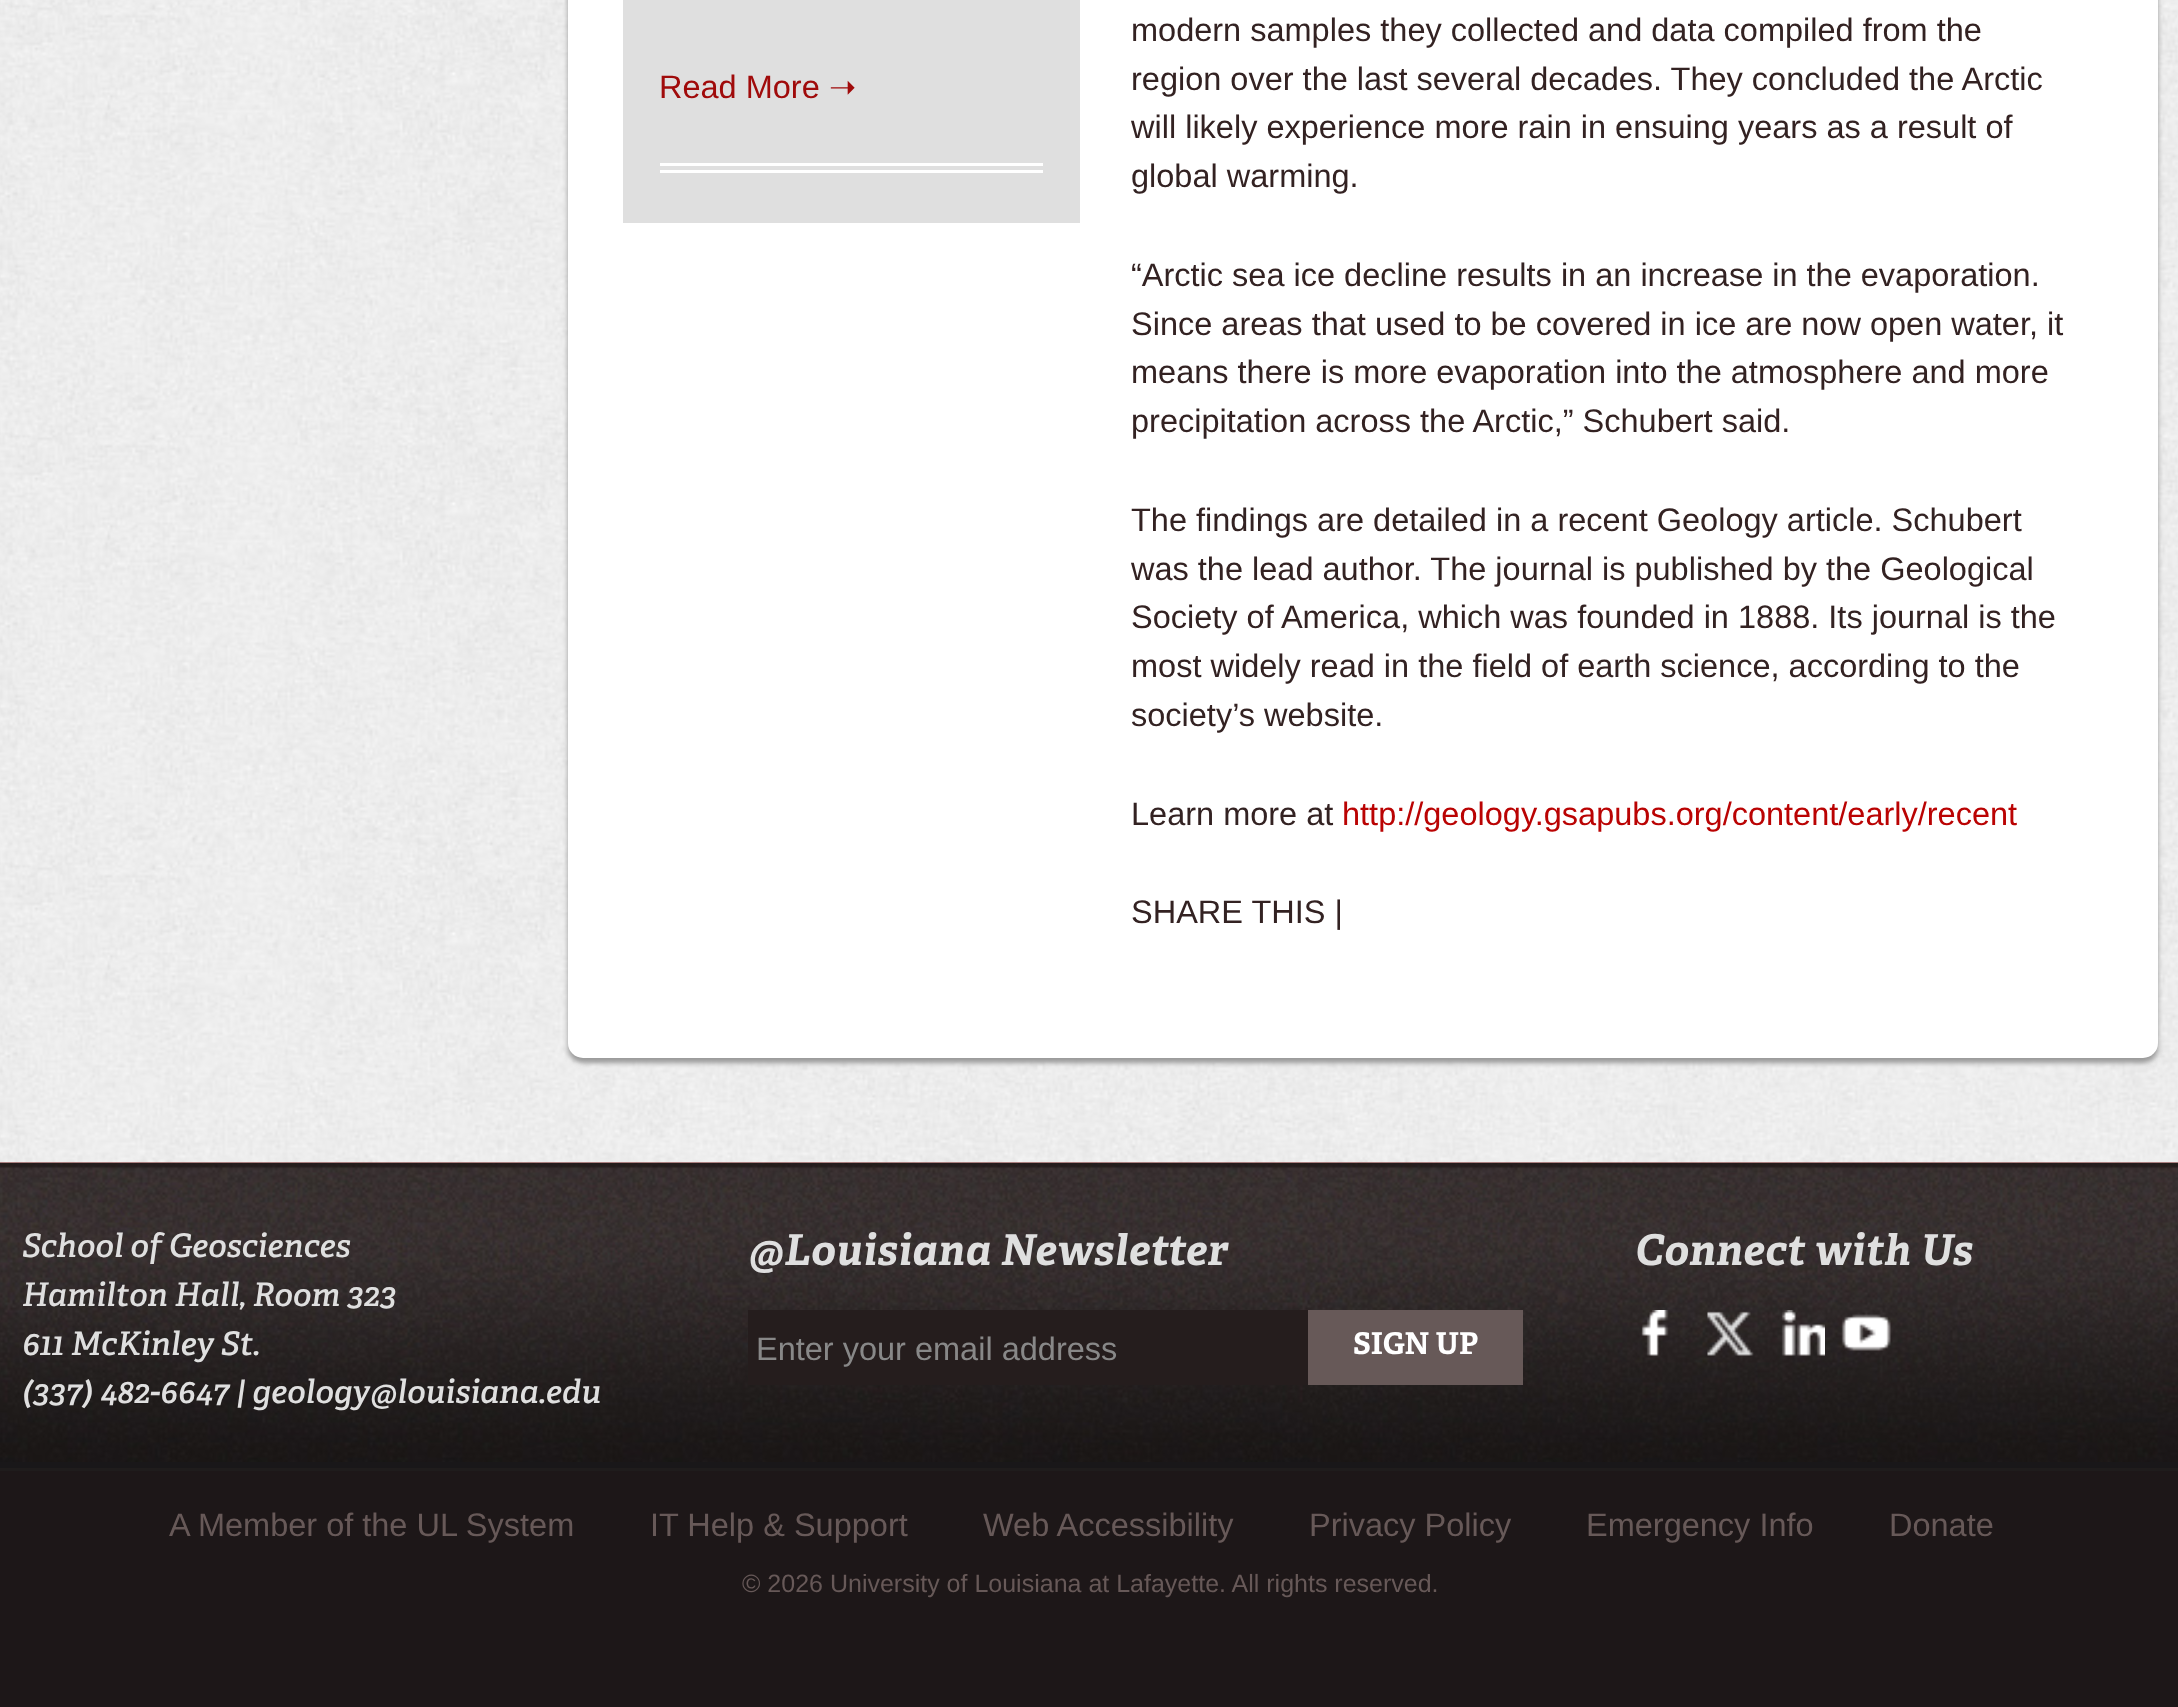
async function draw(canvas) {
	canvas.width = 2178;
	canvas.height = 1707;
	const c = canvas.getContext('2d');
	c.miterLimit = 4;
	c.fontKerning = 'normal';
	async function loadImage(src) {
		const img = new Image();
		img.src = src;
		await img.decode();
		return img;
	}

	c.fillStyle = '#1d1718';
	c.fillRect(0, 0, 2178, 1707);
	c.fillStyle = '#611';
	c.fillRect(0, 1162, 2178, 1);
	c.drawImage(await loadImage('img1.png'), 0, 0, 2178, 1163);
	c.fillStyle = '#999';
	c.filter = 'blur(2.5px)';
	c.beginPath();
	c.roundRect(568, -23, 1590, 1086, 15);
	c.fill();
	c.filter = 'none';
	c.fillStyle = '#fff';
	c.beginPath();
	c.roundRect(568, -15, 1590, 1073, 15);
	c.fill();
	for (const [x, y, w, h, color] of [
		[623, 0, 457, 223, '#dfdfdf'],
		[660, 163, 383, 3, '#fff'],
		[660, 170, 383, 3, '#fff'],
	]) {
		c.fillStyle = color;
		c.fillRect(x, y, w, h);
	}
	c.font = '32.5px Liberation Sans';
	c.fillStyle = '#a00b0b';
	c.fillText('Read More', 659, 98);
	c.font = '32.5px DejaVu Sans';
	c.fillText('➝', 829, 98);
	c.font = '32.5px Liberation Sans';
	c.fillStyle = '#322';
	for (const [text, x, y] of [
		['modern samples they collected and data compiled from the', 1131, 41],
		['region over the last several decades. They concluded the Arctic', 1131, 90],
		['will likely experience more rain in ensuing years as a result of', 1131, 138],
		['global warming.', 1131, 187],
		['“Arctic sea ice decline results in an increase in the evaporation.', 1131, 286],
		['Since areas that used to be covered in ice are now open water, it', 1131, 335],
		['means there is more evaporation into the atmosphere and more', 1131, 383],
		['precipitation across the Arctic,” Schubert said.', 1131, 432],
		['The findings are detailed in a recent Geology article. Schubert', 1131, 531],
		['was the lead author. The journal is published by the Geological', 1131, 580],
		['Society of America, which was founded in 1888. Its journal is the', 1131, 628],
		['most widely read in the field of earth science, according to the', 1131, 677],
		['society’s website.', 1131, 726],
		['Learn more at', 1131, 825],
	]) {
		c.fillText(text, x, y);
	}
	c.fillStyle = '#ba0303';
	c.fillText('http://geology.gsapubs.org/content/early/recent', 1342, 825);
	c.fillStyle = '#322';
	c.fillText('SHARE THIS |', 1131, 923);
	c.fillStyle = '#191719';
	c.fillRect(0, 1462, 2178, 6);
	c.drawImage(await loadImage('img2.png'), 0, 1163, 2178, 299);
	c.fillStyle = '#1f1c1c';
	c.fillRect(0, 1468, 2178, 3);
	c.font = 'italic 600 32.5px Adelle';
	c.fillStyle = '#dfdfdf';
	for (const [text, x, y] of [
		['School of Geosciences', 22, 1257],
		['Hamilton Hall, Room 323', 22, 1306],
		['611 McKinley St.', 22, 1355],
		['(337) 482-6647 | geology@louisiana.edu', 22, 1403],
	]) {
		c.fillText(text, x, y);
	}
	c.letterSpacing = '0.6px';
	c.font = 'italic bold 42.5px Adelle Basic';
	c.fillText('@Louisiana Newsletter', 748, 1265);
	c.fillStyle = '#251d1d';
	c.fillRect(748, 1310, 560, 75);
	c.letterSpacing = '0px';
	c.font = '32.5px Liberation Sans';
	c.fillStyle = '#888';
	c.fillText('Enter your email address', 756, 1360);
	c.fillStyle = '#675958';
	c.fillRect(1308, 1310, 215, 75);
	c.font = 'bold 30px Adelle Basic';
	c.fillStyle = '#fff';
	c.fillText('SIGN UP', 1353, 1354);
	c.letterSpacing = '0.6px';
	c.font = 'italic bold 42.5px Adelle Basic';
	c.fillStyle = '#dfdfdf';
	c.fillText('Connect with Us', 1635, 1265);
	c.drawImage(await loadImage('img3.png'), 1641, 1310, 28, 46);
	c.drawImage(await loadImage('img4.png'), 1707, 1311, 47, 45);
	c.drawImage(await loadImage('img5.png'), 1781, 1310, 44, 46);
	c.drawImage(await loadImage('img6.png'), 1841, 1314, 50, 37);
	c.letterSpacing = '0px';
	c.font = '32.5px Liberation Sans';
	c.fillStyle = '#675958';
	for (const [text, x, y] of [
		['A Member of the UL System', 169, 1536],
		['IT Help & Support', 650, 1536],
		['Web Accessibility', 983, 1536],
		['Privacy Policy', 1309, 1536],
		['Emergency Info', 1586, 1536],
		['Donate', 1889, 1536],
	]) {
		c.fillText(text, x, y);
	}
	c.font = '25px Liberation Sans';
	c.fillText('© 2026 University of Louisiana at Lafayette. All rights reserved.', 742, 1592);
}

draw(document.querySelector('canvas'));
